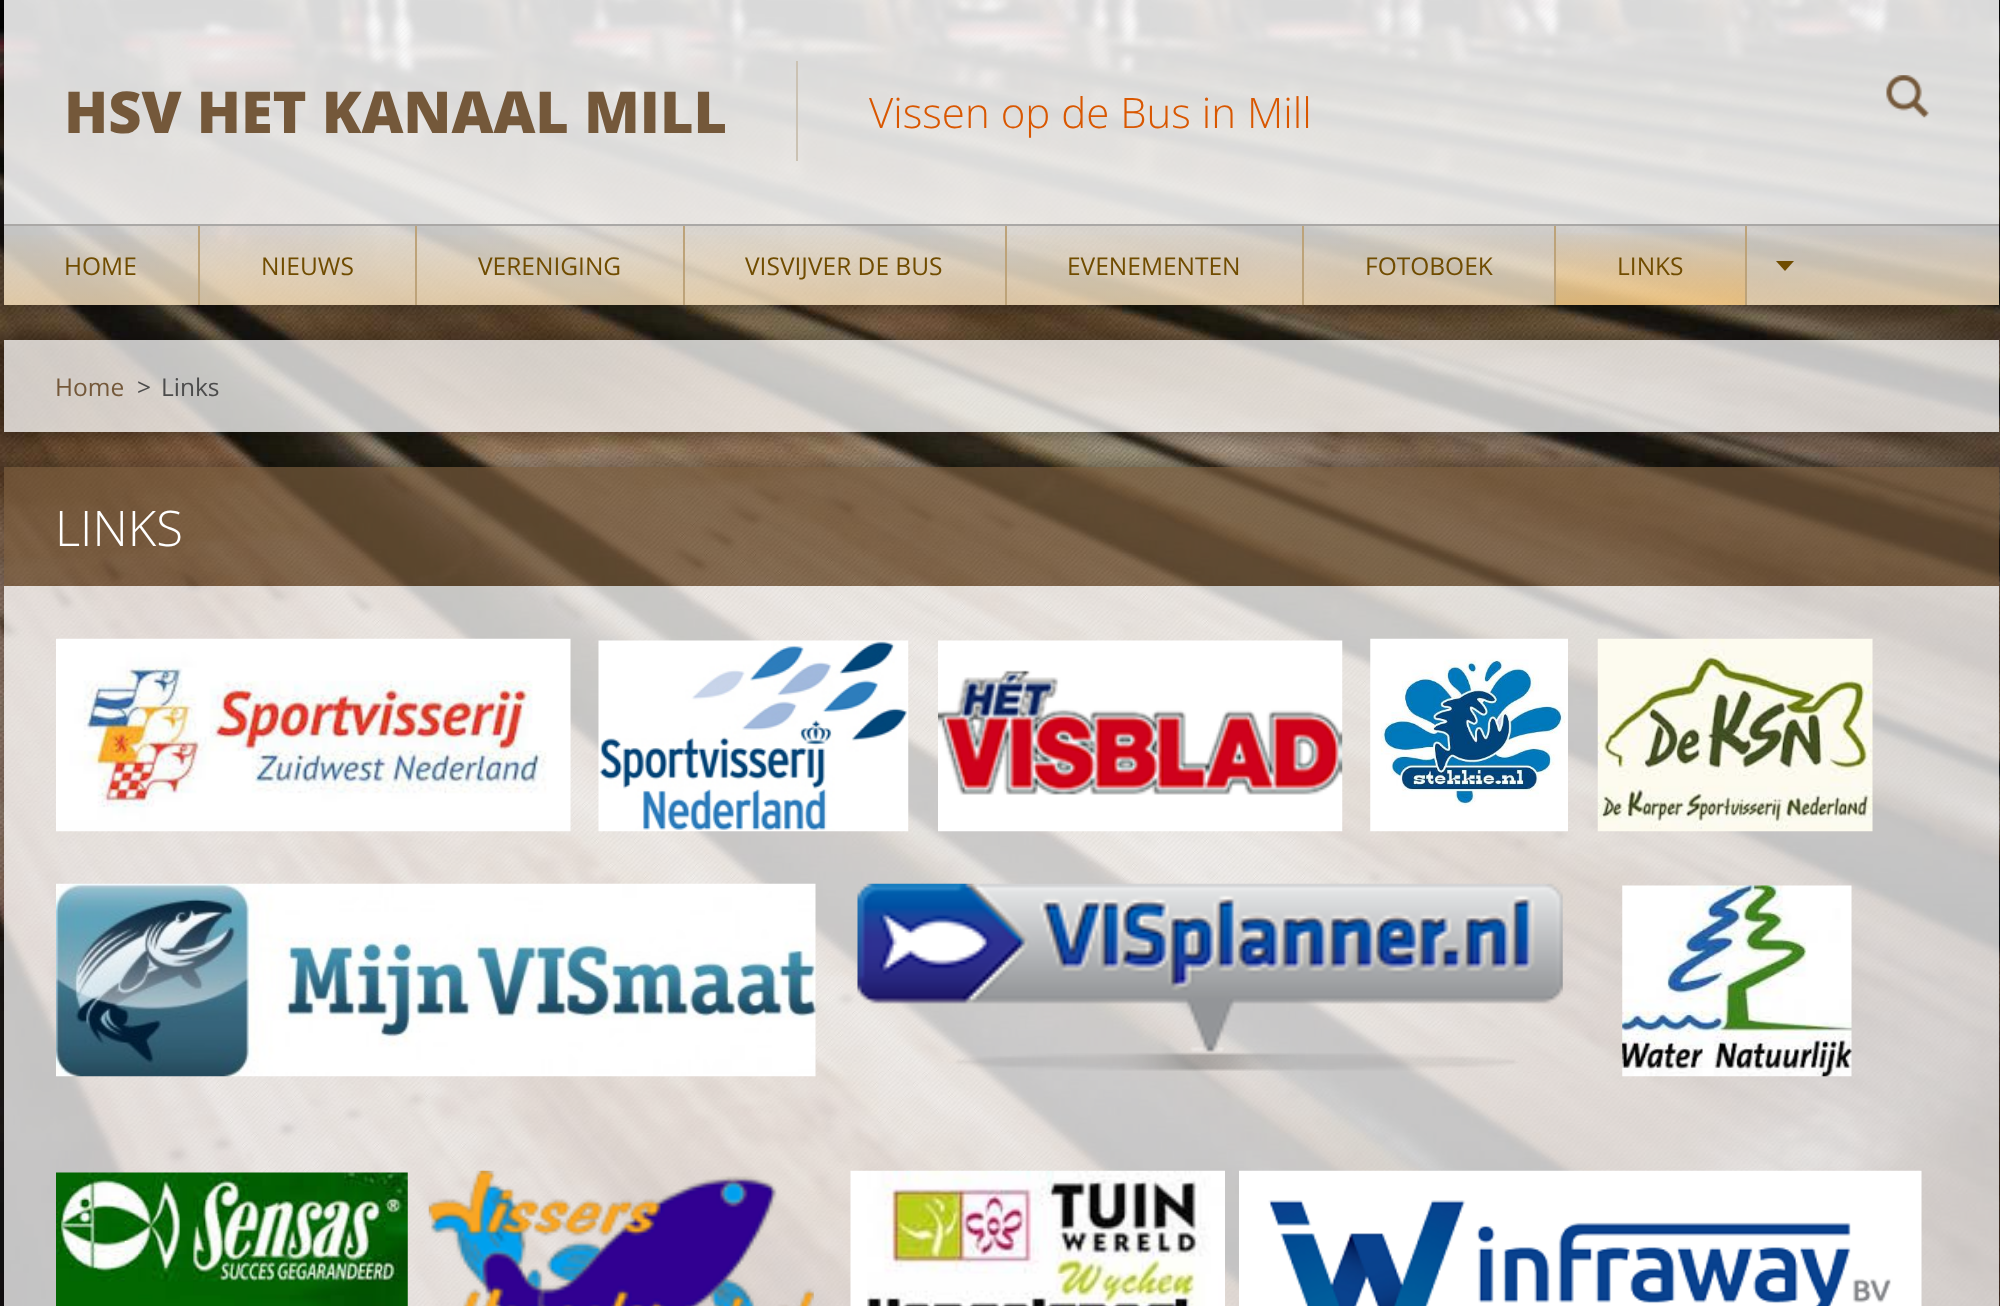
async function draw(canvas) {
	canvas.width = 2000;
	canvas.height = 1306;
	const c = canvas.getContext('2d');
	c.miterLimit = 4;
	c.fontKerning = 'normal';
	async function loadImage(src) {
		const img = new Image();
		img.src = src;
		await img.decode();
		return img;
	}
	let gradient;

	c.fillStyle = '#fff';
	c.fillRect(0, 0, 2000, 1306);
	c.drawImage(await loadImage('img1.png'), 0, 0, 2000, 1306);
	c.save();
	c.beginPath();
	c.moveTo(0, 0);
	c.lineTo(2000, 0);
	c.lineTo(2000, 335);
	c.lineTo(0, 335);
	c.closePath();
	c.moveTo(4, 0);
	c.lineTo(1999, 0);
	c.lineTo(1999, 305);
	c.lineTo(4, 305);
	c.closePath();
	c.clip('evenodd');
	c.fillStyle = '#00000040';
	c.filter = 'blur(8px)';
	c.beginPath();
	c.rect(-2, -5, 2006, 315);
	c.fill();
	c.filter = 'none';
	c.restore();
	c.fillStyle = '#ffffffd9';
	c.fillRect(4, 0, 1995, 224);
	c.font = '800 57.75px Open Sans';
	c.fillStyle = '#74583a';
	c.fillText('HSV HET KANAAL MILL', 64, 133);
	c.fillStyle = '#cbc2b3';
	c.fillRect(796, 61, 2, 100);
	c.font = '300 42px Open Sans';
	c.fillStyle = '#d95700';
	c.fillText('Vissen op de Bus in Mill', 869, 128);
	c.drawImage(await loadImage('img2.png'), 1886, 75, 43, 43);
	c.fillStyle = '#aaa8a6';
	c.fillRect(4, 224, 1995, 2);
	c.fillStyle = '#ffffffbf';
	c.fillRect(4, 226, 1995, 79);
	gradient = c.createLinearGradient(1001, 226, 1001, 305);
	gradient.addColorStop(0, '#ff9c0000');
	gradient.addColorStop(1, '#ff9c0030');
	c.fillStyle = gradient;
	c.fillRect(4, 235, 1995, 70);
	c.fillStyle = '#bda379';
	c.fillRect(198, 226, 2, 79);
	c.font = '24.5px Open Sans';
	c.fillStyle = '#704c00';
	c.fillText('HOME', 64, 275);
	c.fillStyle = '#bda379';
	c.fillRect(415, 226, 2, 79);
	c.fillStyle = '#704c00';
	c.fillText('NIEUWS', 261, 275);
	c.fillStyle = '#bda379';
	c.fillRect(683, 226, 2, 79);
	c.fillStyle = '#704c00';
	c.fillText('VERENIGING', 478, 275);
	c.fillStyle = '#bda379';
	c.fillRect(1005, 226, 2, 79);
	c.fillStyle = '#704c00';
	c.fillText('VISVIJVER DE BUS', 745, 275);
	c.fillStyle = '#bda379';
	c.fillRect(1302, 226, 2, 79);
	c.fillStyle = '#704c00';
	c.fillText('EVENEMENTEN', 1067, 275);
	c.fillStyle = '#bda379';
	c.fillRect(1554, 226, 2, 79);
	c.fillStyle = '#704c00';
	c.fillText('FOTOBOEK', 1365, 275);
	gradient = c.createLinearGradient(1650, 226, 1650, 305);
	gradient.addColorStop(0, '#ff9c0000');
	gradient.addColorStop(1, '#ff9c0040');
	c.fillStyle = gradient;
	c.fillRect(1556, 233, 189, 72);
	c.fillStyle = '#bda379';
	c.fillRect(1745, 226, 2, 79);
	c.fillStyle = '#704c00';
	c.fillText('LINKS', 1617, 275);
	c.beginPath();
	c.moveTo(1776, 261);
	c.lineTo(1794, 261);
	c.lineTo(1785, 271);
	c.closePath();
	c.fill();
	c.save();
	c.beginPath();
	c.moveTo(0, 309);
	c.lineTo(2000, 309);
	c.lineTo(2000, 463);
	c.lineTo(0, 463);
	c.closePath();
	c.moveTo(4, 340);
	c.lineTo(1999, 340);
	c.lineTo(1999, 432);
	c.lineTo(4, 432);
	c.closePath();
	c.clip('evenodd');
	c.fillStyle = '#00000040';
	c.filter = 'blur(8px)';
	c.beginPath();
	c.rect(-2, 334, 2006, 104);
	c.fill();
	c.filter = 'none';
	c.restore();
	c.fillStyle = '#ffffffbf';
	c.fillRect(4, 340, 1995, 92);
	c.fillStyle = '#74583a';
	c.fillText('Home', 55, 396);
	c.fillStyle = '#4c4c4c';
	c.fillText('>', 137, 396);
	c.fillText('Links', 161, 396);
	c.save();
	c.beginPath();
	c.moveTo(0, 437);
	c.lineTo(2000, 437);
	c.lineTo(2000, 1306);
	c.lineTo(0, 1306);
	c.closePath();
	c.moveTo(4, 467);
	c.lineTo(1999, 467);
	c.lineTo(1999, 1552);
	c.lineTo(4, 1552);
	c.closePath();
	c.clip('evenodd');
	c.fillStyle = '#00000040';
	c.filter = 'blur(8px)';
	c.beginPath();
	c.rect(-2, 462, 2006, 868);
	c.fill();
	c.filter = 'none';
	c.restore();
	c.fillStyle = '#74583ab5';
	c.fillRect(4, 467, 1995, 119);
	c.font = '300 49px Open Sans';
	c.fillStyle = '#fff';
	c.fillText('LINKS', 55, 546);
	c.fillStyle = '#ffffffbf';
	c.fillRect(4, 586, 1995, 720);
	c.drawImage(await loadImage('img3.png'), 56, 638, 515, 194);
	c.drawImage(await loadImage('img4.png'), 598, 640, 311, 192);
	c.drawImage(await loadImage('img5.png'), 938, 640, 405, 192);
	c.drawImage(await loadImage('img6.png'), 1370, 638, 198, 194);
	c.drawImage(await loadImage('img7.png'), 1597, 638, 276, 194);
	c.drawImage(await loadImage('img8.png'), 56, 883, 760, 194);
	c.drawImage(await loadImage('img9.png'), 857, 883, 706, 188);
	c.drawImage(await loadImage('img10.png'), 1622, 885, 230, 192);
	c.drawImage(await loadImage('img11.png'), 56, 1172, 352, 134);
	c.drawImage(await loadImage('img12.png'), 428, 1170, 386, 136);
	c.drawImage(await loadImage('img13.png'), 850, 1170, 375, 136);
	c.drawImage(await loadImage('img14.png'), 1239, 1170, 683, 136);
}

draw(document.querySelector('canvas'));
